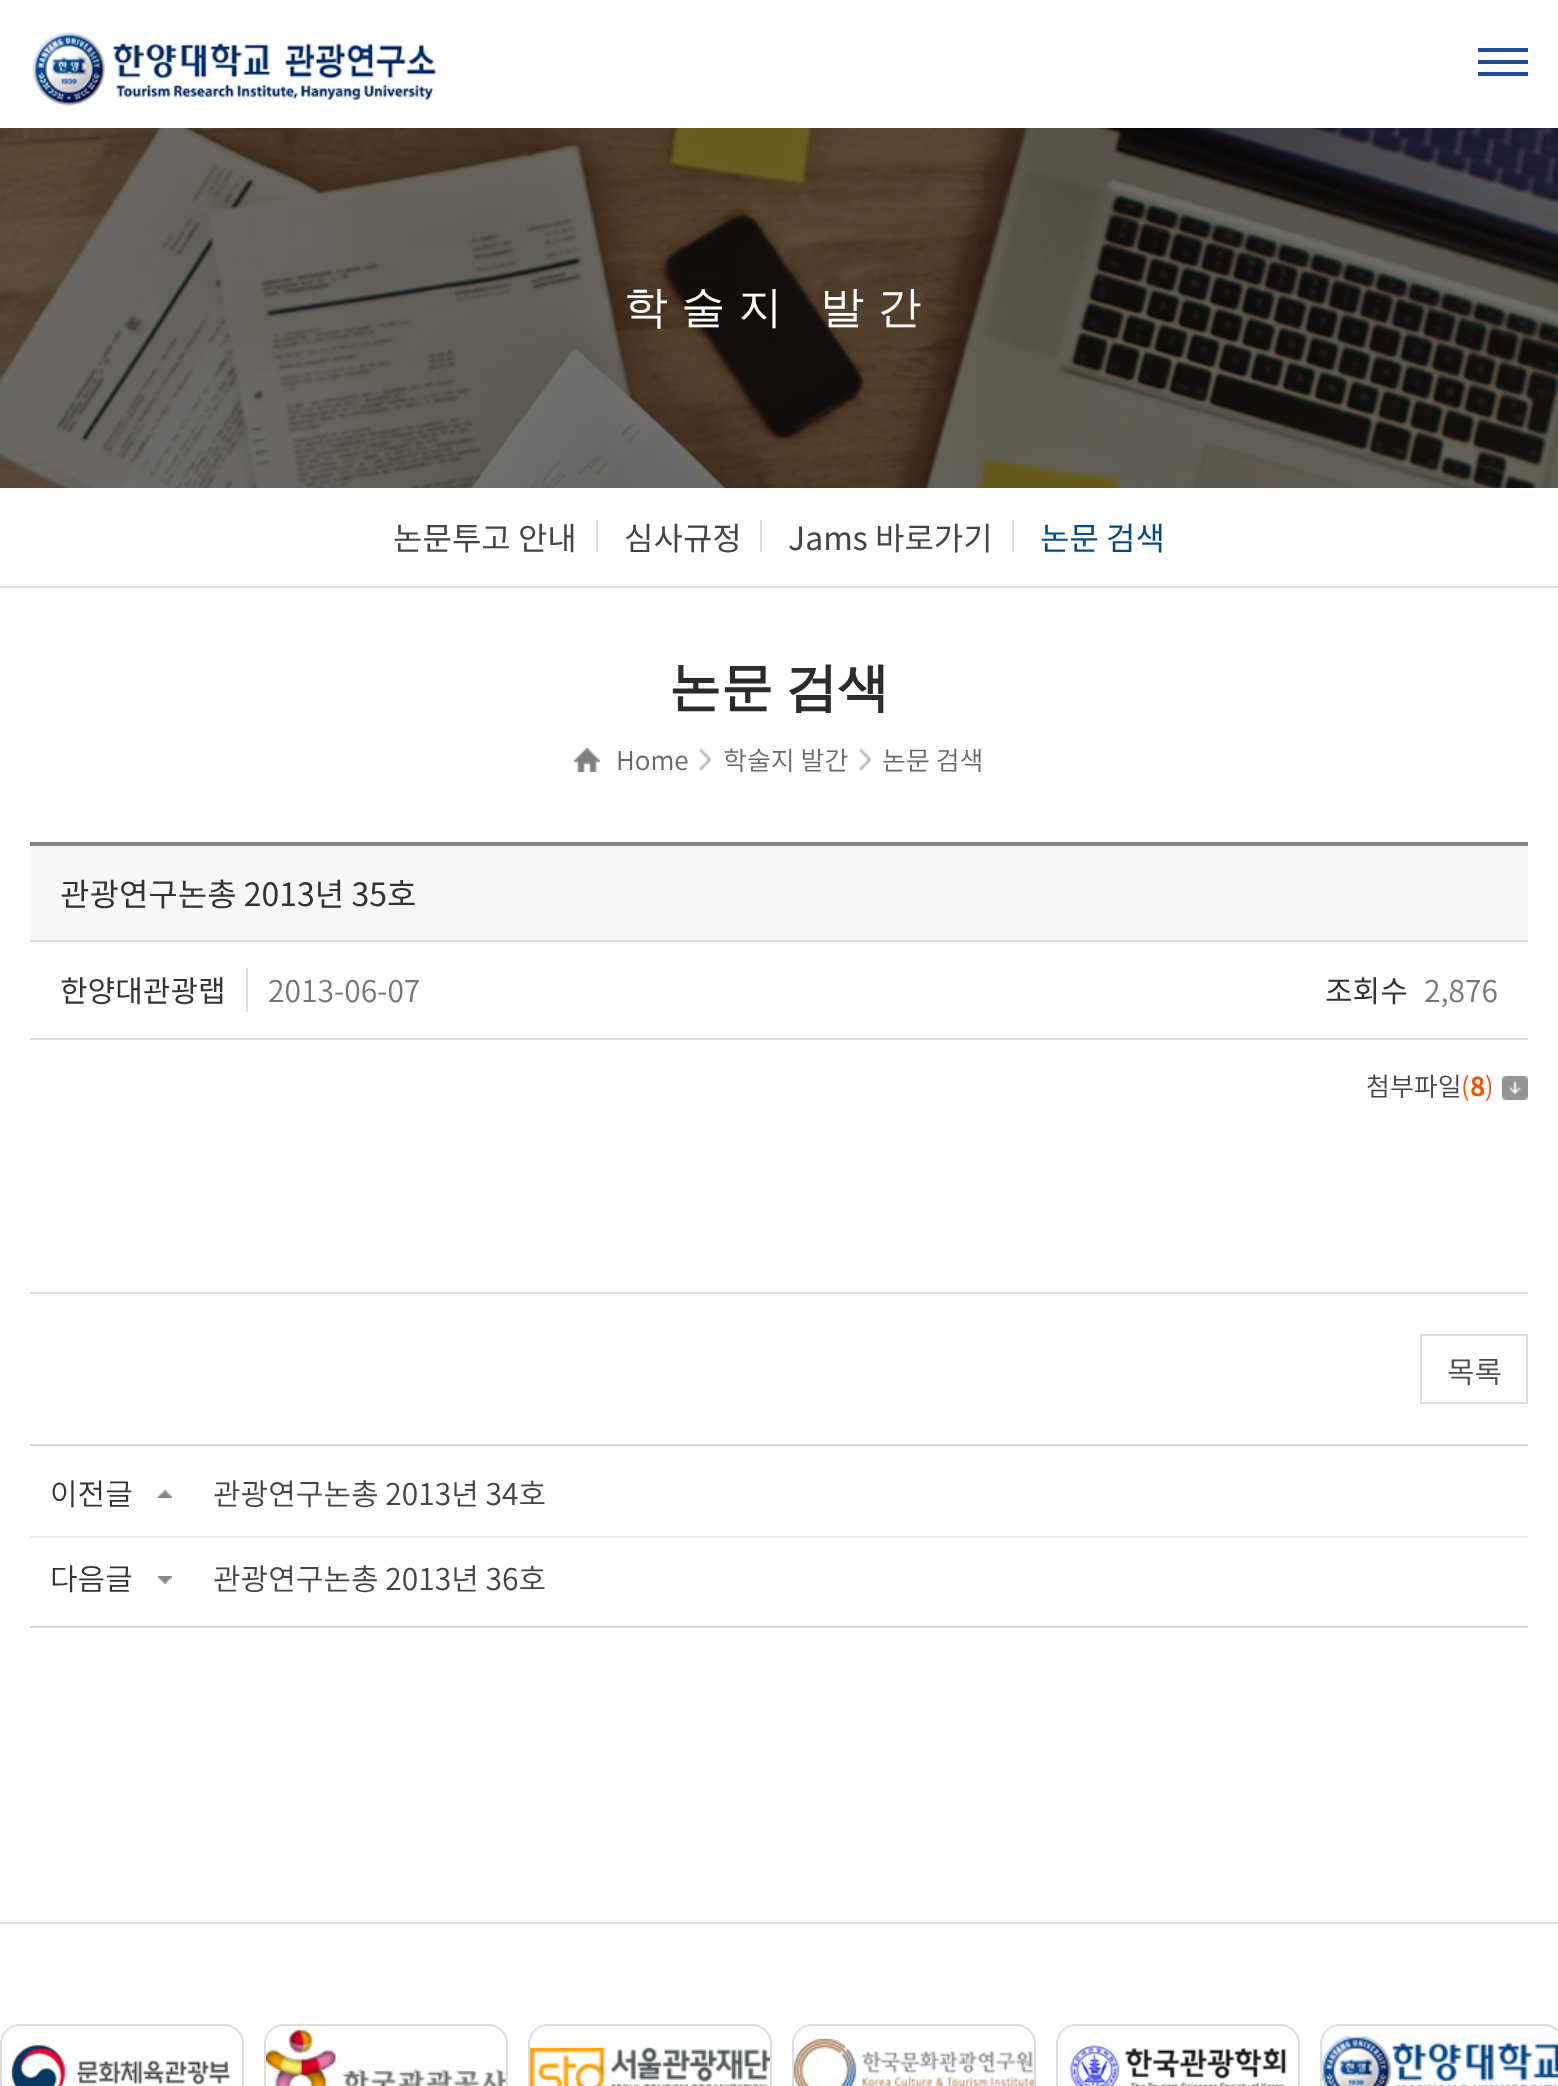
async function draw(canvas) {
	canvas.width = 1558;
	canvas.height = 2086;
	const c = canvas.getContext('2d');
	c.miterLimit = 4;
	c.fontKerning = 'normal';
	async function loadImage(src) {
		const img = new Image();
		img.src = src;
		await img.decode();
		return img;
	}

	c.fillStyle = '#fff';
	c.fillRect(0, 0, 1558, 2086);
	c.drawImage(await loadImage('img1.png'), 32, 32, 405, 74);
	for (const [x, y, w, h, color] of [
		[1478, 60, 50, 4, '#214c9b'],
		[1478, 48, 50, 4, '#214c9b'],
		[1478, 72, 50, 4, '#214c9b'],
	]) {
		c.fillStyle = color;
		c.fillRect(x, y, w, h);
	}
	c.drawImage(await loadImage('img2.png'), 0, 128, 1558, 360);
	c.letterSpacing = '13.25px';
	c.wordSpacing = '-2px';
	c.font = '500 44px WenQuanYi Zen Hei';
	c.fillStyle = '#fff';
	c.fillText('학술지 발간', 624, 322);
	c.fillStyle = '#ddd';
	c.fillRect(0, 586, 1558, 2);
	c.letterSpacing = '0px';
	c.wordSpacing = '0px';
	c.font = '32px Noto Sans KR';
	c.fillStyle = '#444';
	c.fillText('논문투고 안내', 393, 550);
	c.fillStyle = '#ddd';
	c.fillRect(596, 520, 2, 32);
	c.fillStyle = '#444';
	c.fillText('심사규정', 624, 550);
	c.fillStyle = '#ddd';
	c.fillRect(760, 520, 2, 32);
	c.fillStyle = '#444';
	c.fillText('Jams 바로가기', 788, 550);
	c.fillStyle = '#ddd';
	c.fillRect(1012, 520, 2, 32);
	c.fillStyle = '#004989';
	c.fillText('논문 검색', 1040, 550);
	c.wordSpacing = '-3px';
	c.font = 'bold 52px WenQuanYi Zen Hei';
	c.fillStyle = '#2c2c2c';
	c.fillText('논문 검색', 669, 705);
	c.drawImage(await loadImage('img3.png'), 574, 748, 26, 24);
	c.wordSpacing = '0px';
	c.font = '300 26px Noto Sans KR';
	c.fillStyle = '#686868';
	c.fillText('Home', 616, 770);
	c.drawImage(await loadImage('img4.png'), 698, 748, 14, 23);
	c.fillText('학술지 발간', 723, 770);
	c.drawImage(await loadImage('img4.png'), 858, 748, 14, 23);
	c.fillText('논문 검색', 882, 770);
	for (const [x, y, w, h, color] of [
		[30, 842, 1498, 4, '#868686'],
		[30, 846, 1498, 94, '#f7f7f7'],
		[30, 940, 1498, 2, '#ddd'],
	]) {
		c.fillStyle = color;
		c.fillRect(x, y, w, h);
	}
	c.font = '32px Noto Sans KR';
	c.fillStyle = '#333';
	c.fillText('관광연구논총 2013년 35호', 60, 906);
	c.fillStyle = '#ddd';
	c.fillRect(30, 1038, 1498, 2);
	c.font = '30px Noto Sans KR';
	c.fillStyle = '#333';
	c.fillText('한양대관광랩', 60, 1002);
	c.fillStyle = '#dedede';
	c.fillRect(246, 968, 2, 44);
	c.font = '300 30px Noto Sans KR';
	c.fillStyle = '#767676';
	c.fillText('2013-06-07', 268, 1002);
	c.font = '30px Noto Sans KR';
	c.fillStyle = '#333';
	c.fillText('조회수', 1325, 1002);
	c.font = '300 30px Noto Sans KR';
	c.fillStyle = '#767676';
	c.fillText('2,876', 1424, 1002);
	c.font = '300 26px Noto Sans KR';
	c.fillStyle = '#444';
	c.fillText('첨부파일', 1366, 1096);
	c.fillStyle = '#ff4e00';
	c.fillText('(', 1461, 1096);
	c.font = 'bold 26px Noto Sans KR';
	c.fillText('8', 1470, 1096);
	c.font = '300 26px Noto Sans KR';
	c.fillText(')', 1485, 1096);
	c.drawImage(await loadImage('img5.png'), 1502, 1076, 26, 24);
	c.fillStyle = '#ddd';
	c.fillRect(30, 1292, 1498, 2);
	c.strokeStyle = '#ddd';
	c.lineWidth = 2;
	c.strokeRect(1421, 1335, 106, 68);
	c.font = '300 30px Noto Sans KR';
	c.fillStyle = '#4d4d4d';
	c.fillText('목록', 1447, 1383);
	for (const [x, y, w, h, color] of [
		[30, 1444, 1498, 2, '#d8d8d8'],
		[30, 1626, 1498, 2, '#d8d8d8'],
		[30, 1536, 1498, 2, '#eee'],
	]) {
		c.fillStyle = color;
		c.fillRect(x, y, w, h);
	}
	c.drawImage(await loadImage('img6.png'), 158, 1490, 14, 8);
	c.fillStyle = '#333';
	c.fillText('이전글', 50, 1505);
	c.fillStyle = '#444';
	c.fillText('관광연구논총 2013년 34호', 213, 1505);
	c.drawImage(await loadImage('img7.png'), 158, 1576, 14, 8);
	c.fillStyle = '#333';
	c.fillText('다음글', 50, 1590);
	c.fillStyle = '#444';
	c.fillText('관광연구논총 2013년 36호', 213, 1590);
	c.fillStyle = '#ddd';
	c.fillRect(0, 1922, 1558, 2);
	c.beginPath();
	c.roundRect(1, 2025, 242, 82, 19);
	c.stroke();
	c.drawImage(await loadImage('img8.png'), 2, 2034, 240, 52);
	c.beginPath();
	c.roundRect(265, 2025, 242, 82, 19);
	c.stroke();
	c.drawImage(await loadImage('img9.png'), 266, 2030, 240, 56);
	c.beginPath();
	c.roundRect(529, 2025, 242, 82, 19);
	c.stroke();
	c.drawImage(await loadImage('img10.png'), 530, 2047, 240, 39);
	c.beginPath();
	c.roundRect(793, 2025, 242, 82, 19);
	c.stroke();
	c.drawImage(await loadImage('img11.png'), 794, 2039, 240, 47);
	c.beginPath();
	c.roundRect(1057, 2025, 242, 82, 19);
	c.stroke();
	c.drawImage(await loadImage('img12.png'), 1058, 2038, 240, 48);
	c.beginPath();
	c.roundRect(1321, 2025, 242, 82, 19);
	c.stroke();
	c.drawImage(await loadImage('img13.png'), 1322, 2036, 236, 50);
}

draw(document.querySelector('canvas'));
